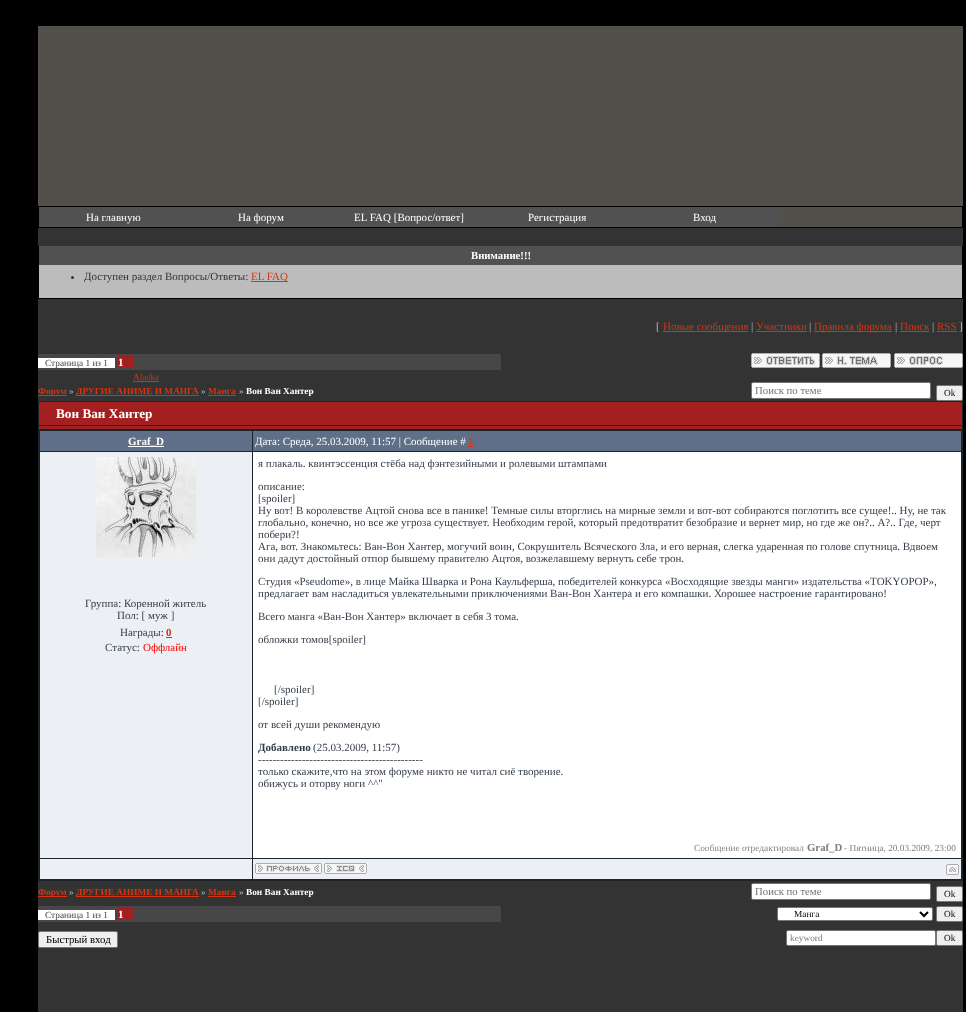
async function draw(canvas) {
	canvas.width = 966;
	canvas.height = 1012;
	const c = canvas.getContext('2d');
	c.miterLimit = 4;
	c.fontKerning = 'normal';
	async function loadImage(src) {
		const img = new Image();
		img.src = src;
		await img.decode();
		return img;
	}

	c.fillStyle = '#000';
	c.fillRect(0, 0, 966, 1012);
	for (const [x, y, w, h, color] of [
		[38, 228, 925, 784, '#333'],
		[38, 26, 925, 180, '#534f4a'],
		[779, 207, 183, 20, '#534f4a'],
		[39, 207, 740, 20, '#515151'],
	]) {
		c.fillStyle = color;
		c.fillRect(x, y, w, h);
	}
	c.font = '11px Liberation Serif';
	c.fillStyle = '#fff';
	for (const [text, x, y] of [
		['На главную', 86, 221],
		['На форум', 238, 221],
		['EL FAQ [Вопрос/ответ]', 354, 221],
		['Регистрация', 528, 221],
		['Вход', 693, 221],
	]) {
		c.fillText(text, x, y);
	}
	for (const [x, y, w, h, color] of [
		[962, 246, 1, 53, '#000'],
		[38, 298, 925, 1, '#000'],
		[38, 246, 1, 53, '#000'],
		[39, 246, 923, 19, '#515151'],
	]) {
		c.fillStyle = color;
		c.fillRect(x, y, w, h);
	}
	c.font = 'bold 10.75px Liberation Serif';
	c.fillStyle = '#fff';
	c.fillText('Внимание!!!', 471, 259);
	c.fillStyle = '#bcbcbc';
	c.fillRect(39, 265, 923, 33);
	c.fillStyle = '#333';
	c.beginPath();
	c.arc(72.5, 277.5, 1.5, 0, 2 * Math.PI);
	c.fill();
	c.font = '11px Liberation Serif';
	c.fillText('Доступен раздел Вопросы/Ответы:', 84, 280);
	c.fillStyle = '#d7350f';
	c.fillRect(251, 281, 37, 1);
	c.fillText('EL FAQ', 251, 280);
	c.fillStyle = '#bcbcbc';
	c.fillText('[', 656, 330);
	c.fillStyle = '#d7350f';
	c.fillRect(663, 331, 85, 1);
	c.fillText('Новые сообщения', 663, 330);
	c.fillStyle = '#bcbcbc';
	c.fillText('|', 751, 330);
	c.fillStyle = '#d7350f';
	c.fillText('Участники', 756, 330);
	c.fillRect(756, 331, 51, 1);
	c.fillStyle = '#bcbcbc';
	c.fillText('|', 809, 330);
	c.fillStyle = '#d7350f';
	c.fillRect(814, 331, 78, 1);
	c.fillText('Правила форума', 814, 330);
	c.fillStyle = '#bcbcbc';
	c.fillText('|', 895, 330);
	c.fillStyle = '#d7350f';
	c.fillText('Поиск', 900, 330);
	c.fillRect(900, 331, 29, 1);
	c.fillStyle = '#bcbcbc';
	c.fillText('|', 932, 330);
	c.fillStyle = '#d7350f';
	c.fillText('RSS', 937, 330);
	c.fillRect(937, 331, 20, 1);
	c.fillStyle = '#bcbcbc';
	c.fillText(']', 959, 330);
	c.fillStyle = '#474747';
	c.fillRect(38, 354, 463, 16);
	c.fillStyle = '#fff';
	c.fillRect(38, 358, 77, 10);
	c.font = '9.3px Liberation Serif';
	c.fillStyle = '#353e4a';
	c.fillText('Страница 1 из 1', 45, 366);
	c.fillStyle = '#a42020';
	c.fillRect(118, 356, 15, 12);
	c.font = 'bold 11px Liberation Serif';
	c.fillStyle = '#fff';
	c.fillText('1', 118, 366);
	c.drawImage(await loadImage('img1.png'), 751, 353, 69, 15);
	c.drawImage(await loadImage('img2.png'), 822, 353, 69, 15);
	c.drawImage(await loadImage('img3.png'), 894, 353, 69, 15);
	c.font = '9.3px Liberation Serif';
	c.fillStyle = '#d7350f';
	c.fillText('Alaska', 133, 380);
	c.fillRect(133, 381, 26, 1);
	c.fillRect(38, 395, 29, 1);
	c.font = 'bold 9.3px Liberation Serif';
	c.fillText('Форум', 38, 394);
	c.fillStyle = '#99a5b7';
	c.fillText('»', 69, 394);
	c.fillStyle = '#d7350f';
	c.fillRect(76, 395, 123, 1);
	c.fillText('ДРУГИЕ АНИМЕ И МАНГА', 76, 394);
	c.fillStyle = '#99a5b7';
	c.fillText('»', 201, 394);
	c.fillStyle = '#d7350f';
	c.fillText('Манга', 208, 394);
	c.fillRect(208, 395, 28, 1);
	c.fillStyle = '#99a5b7';
	c.fillText('»', 239, 394);
	c.fillStyle = '#fff';
	c.fillText('Вон Ван Хантер', 246, 394);
	c.beginPath();
	c.roundRect(751.5, 382.5, 179, 16, 1.5);
	c.fill();
	c.strokeStyle = '#767676';
	c.stroke();
	c.font = '10.75px Liberation Serif';
	c.fillStyle = '#757575';
	c.fillText('Поиск по теме', 755, 394);
	c.fillStyle = '#efefef';
	c.beginPath();
	c.roundRect(936.5, 385.5, 26, 15, 1.5);
	c.fill();
	c.stroke();
	c.font = '9.3px Liberation Serif';
	c.fillStyle = '#000';
	c.fillText('Ok', 944, 396);
	c.fillStyle = '#1b2429';
	c.fillRect(38, 401, 925, 480);
	c.fillStyle = '#a42020';
	c.fillRect(39, 402, 923, 23);
	c.font = 'bold 13.25px Liberation Serif';
	c.fillStyle = '#fff';
	c.fillText('Вон Ван Хантер', 56, 418);
	for (const [x, y, w, h, color] of [
		[39, 426, 923, 3, '#a42020'],
		[40, 431, 212, 20, '#5f6f87'],
		[128, 446, 36, 1, '#fff'],
	]) {
		c.fillStyle = color;
		c.fillRect(x, y, w, h);
	}
	c.font = 'bold 11px Liberation Serif';
	c.fillText('Graf_D', 128, 445);
	c.fillStyle = '#5f6f87';
	c.fillRect(253, 431, 708, 20);
	c.font = '11px Liberation Serif';
	c.fillStyle = '#fff';
	c.fillText('Дата: Среда, 25.03.2009, 11:57 | Сообщение #', 255, 445);
	c.fillStyle = '#d7350f';
	c.fillText('1', 468, 445);
	c.fillRect(468, 446, 6, 1);
	c.fillStyle = '#eceff3';
	c.fillRect(40, 452, 212, 406);
	c.drawImage(await loadImage('img4.png'), 96, 457, 100, 100);
	c.fillStyle = '#353e4a';
	for (const [text, x, y] of [
		['Группа: Коренной житель', 85, 607],
		['Пол: [ муж ]', 117, 619],
		['Награды:', 120, 636],
	]) {
		c.fillText(text, x, y);
	}
	c.font = 'bold 11px Liberation Serif';
	c.fillStyle = '#d7350f';
	c.fillText('0', 166, 636);
	c.fillRect(166, 637, 6, 1);
	c.font = '11px Liberation Serif';
	c.fillStyle = '#353e4a';
	c.fillText('Статус:', 105, 651);
	c.fillStyle = '#f00';
	c.fillText('Оффлайн', 143, 651);
	c.fillStyle = '#fff';
	c.fillRect(253, 452, 708, 406);
	c.fillStyle = '#353e4a';
	for (const [text, x, y] of [
		['я плакаль. квинтэссенция стёба над фэнтезийными и ролевыми штампами', 258, 467],
		['описание:', 258, 490],
		['[spoiler]', 258, 502],
		['Ну вот! В королевстве Ацтой снова все в панике! Темные силы вторглись на мирные земли и вот-вот собираются поглотить все сущее!.. Ну, не так', 258, 514],
		['глобально, конечно, но все же угроза существует. Необходим герой, который предотвратит безобразие и вернет мир, но где же он?.. А?.. Где, черт', 258, 526],
		['побери?!', 258, 538],
		['Ага, вот. Знакомьтесь: Ван-Вон Хантер, могучий воин, Сокрушитель Всяческого Зла, и его верная, слегка ударенная по голове спутница. Вдвоем', 258, 550],
		['они дадут достойный отпор бывшему правителю Ацтоя, возжелавшему вернуть себе трон.', 258, 562],
		['Студия «Pseudome», в лице Майка Шварка и Рона Каульферша, победителей конкурса «Восходящие звезды манги» издательства «TOKYOPOP»,', 258, 585],
		['предлагает вам насладиться увлекательными приключениями Ван-Вон Хантера и его компашки. Хорошее настроение гарантировано!', 258, 597],
		['Всего манга «Ван-Вон Хантер» включает в себя 3 тома.', 258, 620],
		['обложки томов[spoiler]', 258, 643],
		['[/spoiler]', 274, 693],
		['[/spoiler]', 258, 705],
		['от всей души рекомендую', 258, 728],
	]) {
		c.fillText(text, x, y);
	}
	c.font = 'bold 11px Liberation Serif';
	c.fillText('Добавлено', 258, 751);
	c.font = '11px Liberation Serif';
	for (const [text, x, y] of [
		['(25.03.2009, 11:57)', 313, 751],
		['---------------------------------------------', 258, 763],
		['только скажите,что на этом форуме никто не читал сиё творение.', 258, 775],
		['обижусь и оторву ноги ^^"', 258, 787],
	]) {
		c.fillText(text, x, y);
	}
	c.font = '9.3px Liberation Serif';
	c.fillStyle = '#808080';
	c.fillText('Сообщение отредактировал', 694, 851);
	c.font = 'bold 10.75px Liberation Serif';
	c.fillText('Graf_D', 807, 851);
	c.font = '9.3px Liberation Serif';
	c.fillText('- Пятница, 20.03.2009, 23:00', 844, 851);
	c.fillStyle = '#eceff3';
	c.fillRect(40, 859, 212, 20);
	c.fillRect(253, 859, 708, 20);
	c.drawImage(await loadImage('img5.png'), 255, 863, 67, 11);
	c.drawImage(await loadImage('img6.png'), 324, 863, 43, 11);
	c.drawImage(await loadImage('img7.png'), 946, 864, 13, 11);
	c.fillStyle = '#d7350f';
	c.fillRect(38, 896, 29, 1);
	c.font = 'bold 9.3px Liberation Serif';
	c.fillText('Форум', 38, 895);
	c.fillStyle = '#99a5b7';
	c.fillText('»', 69, 895);
	c.fillStyle = '#d7350f';
	c.fillRect(76, 896, 123, 1);
	c.fillText('ДРУГИЕ АНИМЕ И МАНГА', 76, 895);
	c.fillStyle = '#99a5b7';
	c.fillText('»', 201, 895);
	c.fillStyle = '#d7350f';
	c.fillText('Манга', 208, 895);
	c.fillRect(208, 896, 28, 1);
	c.fillStyle = '#99a5b7';
	c.fillText('»', 239, 895);
	c.fillStyle = '#fff';
	c.fillText('Вон Ван Хантер', 246, 895);
	c.beginPath();
	c.roundRect(751.5, 883.5, 179, 16, 1.5);
	c.fill();
	c.stroke();
	c.font = '10.75px Liberation Serif';
	c.fillStyle = '#757575';
	c.fillText('Поиск по теме', 755, 895);
	c.fillStyle = '#efefef';
	c.beginPath();
	c.roundRect(936.5, 886.5, 26, 15, 1.5);
	c.fill();
	c.stroke();
	c.font = '9.3px Liberation Serif';
	c.fillStyle = '#000';
	c.fillText('Ok', 944, 897);
	c.fillStyle = '#474747';
	c.fillRect(38, 906, 463, 16);
	c.fillStyle = '#fff';
	c.fillRect(38, 910, 77, 10);
	c.fillStyle = '#353e4a';
	c.fillText('Страница 1 из 1', 45, 918);
	c.fillStyle = '#a42020';
	c.fillRect(118, 908, 15, 12);
	c.font = 'bold 11px Liberation Serif';
	c.fillStyle = '#fff';
	c.fillText('1', 118, 918);
	c.beginPath();
	c.roundRect(777.5, 907.5, 155, 13, 1.5);
	c.fill();
	c.stroke();
	c.beginPath();
	c.moveTo(920, 912);
	c.lineTo(924, 916);
	c.lineTo(928, 912);
	c.strokeStyle = '#000';
	c.lineWidth = 2;
	c.stroke();
	c.font = '9.3px Liberation Serif';
	c.fillStyle = '#000';
	c.fillText('Манга', 794, 917);
	c.fillStyle = '#efefef';
	c.beginPath();
	c.roundRect(936.5, 906.5, 26, 15, 1.5);
	c.fill();
	c.strokeStyle = '#767676';
	c.lineWidth = 1;
	c.stroke();
	c.fillStyle = '#000';
	c.fillText('Ok', 944, 917);
	c.fillStyle = '#efefef';
	c.beginPath();
	c.roundRect(38.5, 931.5, 79, 16, 1.5);
	c.fill();
	c.stroke();
	c.font = '10.75px Liberation Serif';
	c.fillStyle = '#000';
	c.fillText('Быстрый вход', 46, 943);
	c.fillStyle = '#fff';
	c.beginPath();
	c.roundRect(786.5, 930.5, 149, 15, 1.5);
	c.fill();
	c.stroke();
	c.font = '9.3px Liberation Serif';
	c.fillStyle = '#757575';
	c.fillText('keyword', 790, 941);
	c.fillStyle = '#efefef';
	c.beginPath();
	c.roundRect(936.5, 930.5, 26, 15, 1.5);
	c.fill();
	c.stroke();
	c.fillStyle = '#000';
	c.fillText('Ok', 944, 941);
}

draw(document.querySelector('canvas'));
